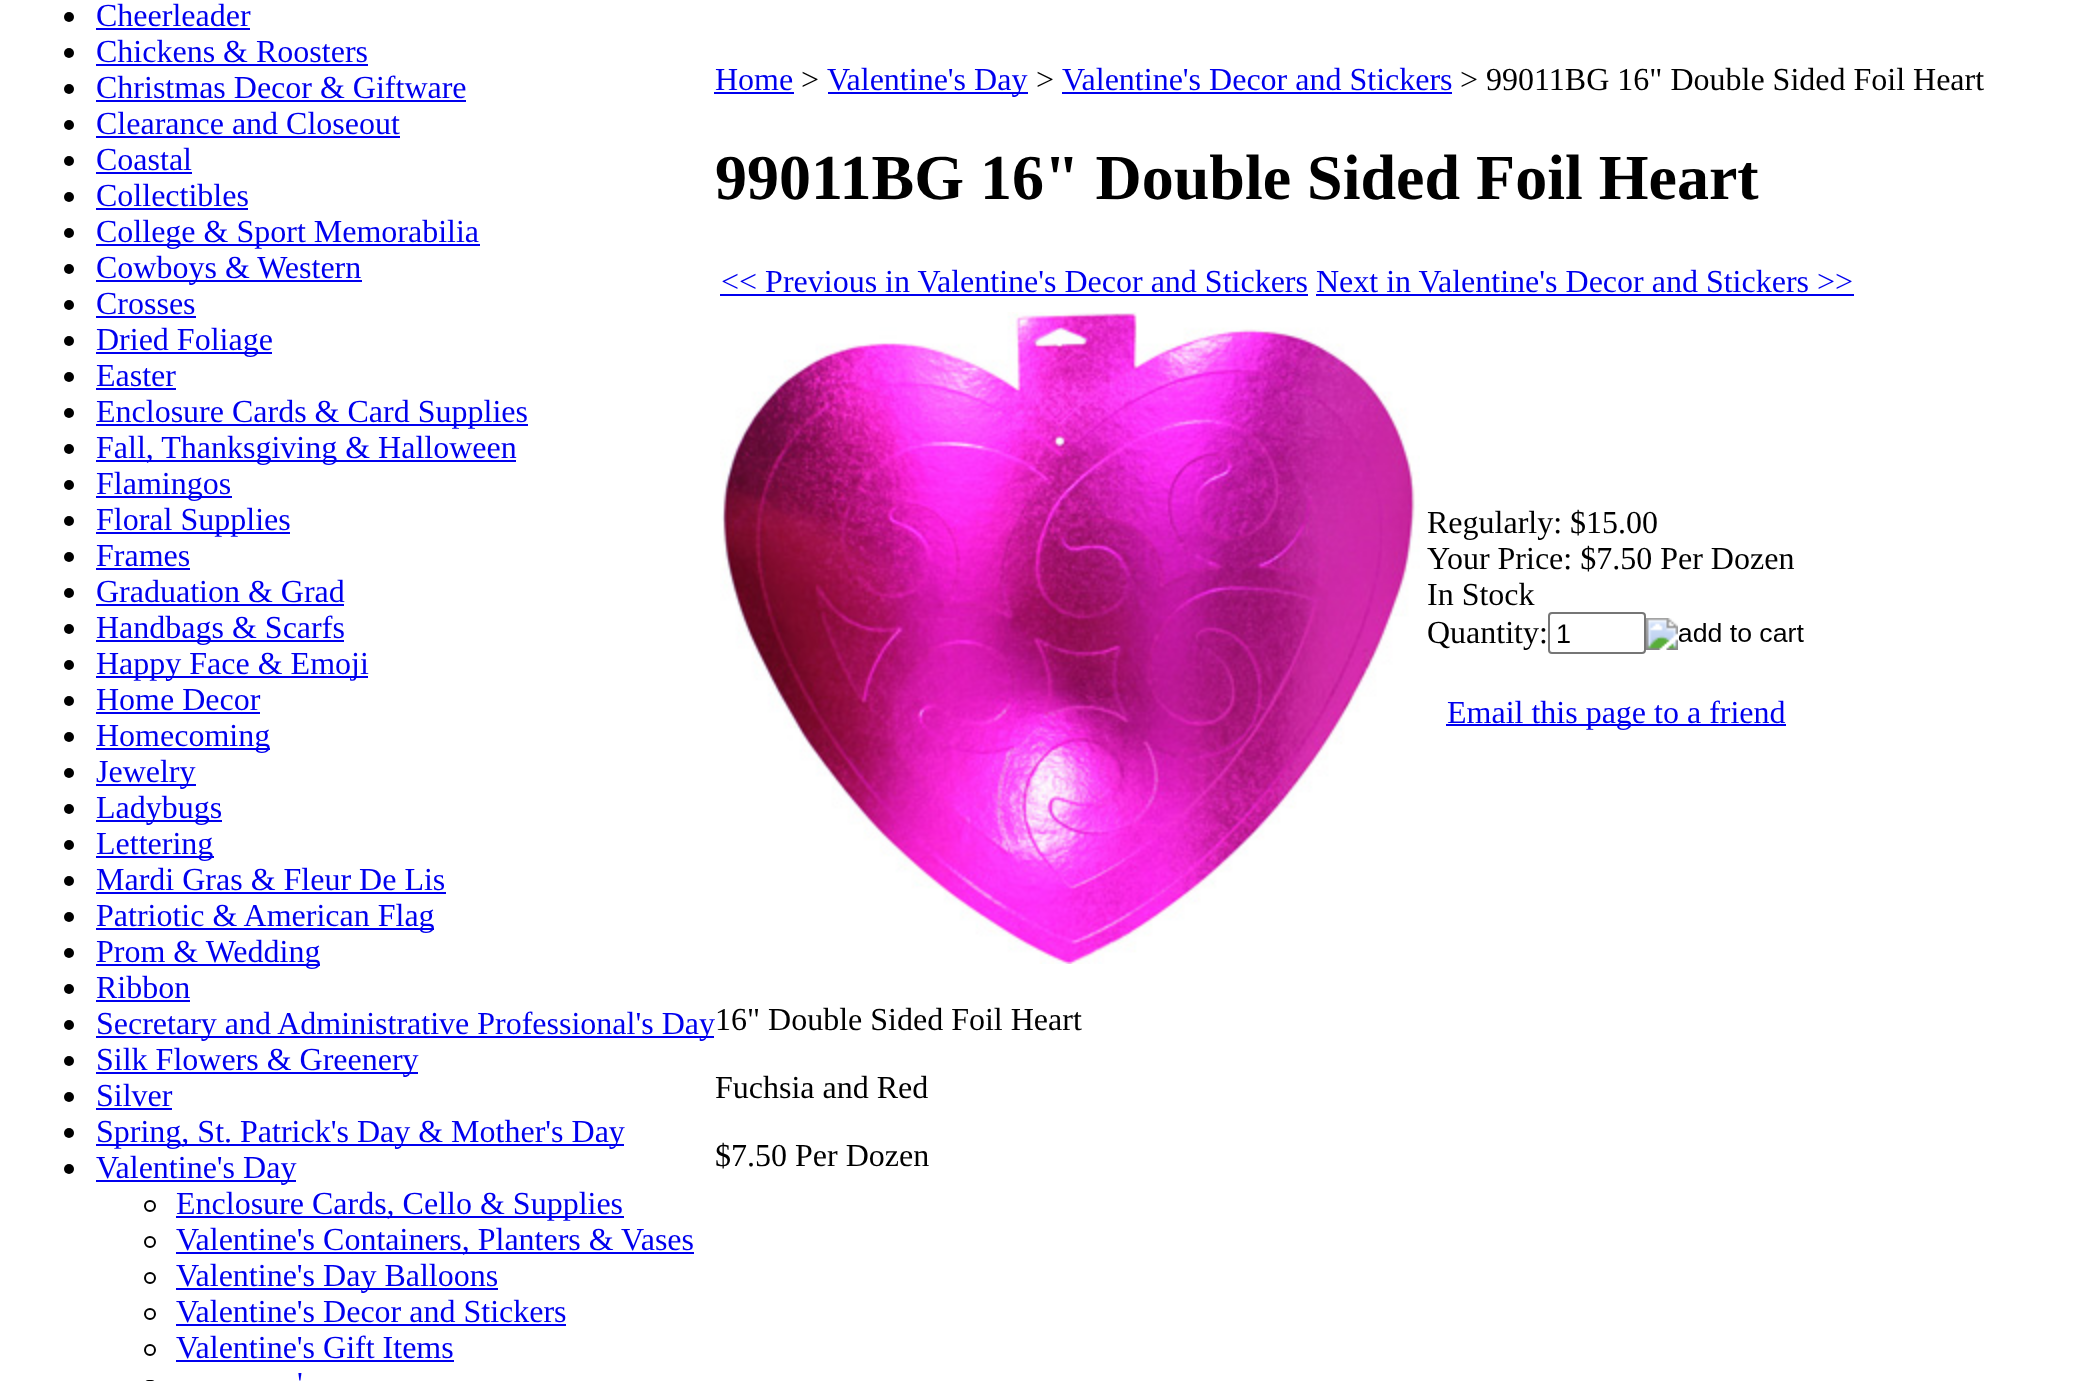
async function draw(canvas) {
	canvas.width = 2090;
	canvas.height = 1381;
	const c = canvas.getContext('2d');
	c.miterLimit = 4;
	c.fontKerning = 'normal';
	async function loadImage(src) {
		const img = new Image();
		img.src = src;
		await img.decode();
		return img;
	}

	c.fillStyle = '#fff';
	c.fillRect(0, 0, 2090, 1381);
	c.fillStyle = '#000';
	c.beginPath();
	c.arc(69, 17, 5, 0, 2 * Math.PI);
	c.fill();
	c.font = '32px Liberation Serif';
	c.fillStyle = '#00e';
	c.fillText('Cheerleader', 96, 26);
	c.fillRect(96, 28, 154, 2);
	c.fillStyle = '#000';
	c.beginPath();
	c.arc(69, 53, 5, 0, 2 * Math.PI);
	c.fill();
	c.fillStyle = '#00e';
	c.fillText('Chickens & Roosters', 96, 62);
	c.fillRect(96, 64, 272, 2);
	c.fillStyle = '#000';
	c.beginPath();
	c.arc(69, 89, 5, 0, 2 * Math.PI);
	c.fill();
	c.fillStyle = '#00e';
	c.fillText('Christmas Decor & Giftware', 96, 98);
	c.fillRect(96, 100, 370, 2);
	c.fillStyle = '#000';
	c.beginPath();
	c.arc(69, 125, 5, 0, 2 * Math.PI);
	c.fill();
	c.fillStyle = '#00e';
	c.fillText('Clearance and Closeout', 96, 134);
	c.fillRect(96, 136, 304, 2);
	c.fillStyle = '#000';
	c.beginPath();
	c.arc(69, 161, 5, 0, 2 * Math.PI);
	c.fill();
	c.fillStyle = '#00e';
	c.fillText('Coastal', 96, 170);
	c.fillRect(96, 172, 96, 2);
	c.fillStyle = '#000';
	c.beginPath();
	c.arc(69, 197, 5, 0, 2 * Math.PI);
	c.fill();
	c.fillStyle = '#00e';
	c.fillText('Collectibles', 96, 206);
	c.fillRect(96, 208, 152, 2);
	c.fillStyle = '#000';
	c.beginPath();
	c.arc(69, 233, 5, 0, 2 * Math.PI);
	c.fill();
	c.fillStyle = '#00e';
	c.fillRect(96, 244, 384, 2);
	c.fillText('College & Sport Memorabilia', 96, 242);
	c.fillStyle = '#000';
	c.beginPath();
	c.arc(69, 269, 5, 0, 2 * Math.PI);
	c.fill();
	c.fillStyle = '#00e';
	c.fillRect(96, 280, 266, 2);
	c.fillText('Cowboys & Western', 96, 278);
	c.fillStyle = '#000';
	c.beginPath();
	c.arc(69, 305, 5, 0, 2 * Math.PI);
	c.fill();
	c.fillStyle = '#00e';
	c.fillText('Crosses', 96, 314);
	c.fillRect(96, 316, 100, 2);
	c.fillStyle = '#000';
	c.beginPath();
	c.arc(69, 341, 5, 0, 2 * Math.PI);
	c.fill();
	c.fillStyle = '#00e';
	c.fillRect(96, 352, 176, 2);
	c.fillText('Dried Foliage', 96, 350);
	c.fillStyle = '#000';
	c.beginPath();
	c.arc(69, 377, 5, 0, 2 * Math.PI);
	c.fill();
	c.fillStyle = '#00e';
	c.fillText('Easter', 96, 386);
	c.fillRect(96, 388, 80, 2);
	c.fillStyle = '#000';
	c.beginPath();
	c.arc(69, 413, 5, 0, 2 * Math.PI);
	c.fill();
	c.fillStyle = '#00e';
	c.fillRect(96, 424, 432, 2);
	c.fillText('Enclosure Cards & Card Supplies', 96, 422);
	c.fillStyle = '#000';
	c.beginPath();
	c.arc(69, 449, 5, 0, 2 * Math.PI);
	c.fill();
	c.fillStyle = '#00e';
	c.fillRect(96, 460, 420, 2);
	c.fillText('Fall, Thanksgiving & Halloween', 96, 458);
	c.fillStyle = '#000';
	c.beginPath();
	c.arc(69, 485, 5, 0, 2 * Math.PI);
	c.fill();
	c.fillStyle = '#00e';
	c.fillRect(96, 496, 136, 2);
	c.fillText('Flamingos', 96, 494);
	c.fillStyle = '#000';
	c.beginPath();
	c.arc(69, 521, 5, 0, 2 * Math.PI);
	c.fill();
	c.fillStyle = '#00e';
	c.fillRect(96, 532, 194, 2);
	c.fillText('Floral Supplies', 96, 530);
	c.fillStyle = '#000';
	c.beginPath();
	c.arc(69, 557, 5, 0, 2 * Math.PI);
	c.fill();
	c.fillStyle = '#00e';
	c.fillText('Frames', 96, 566);
	c.fillRect(96, 568, 94, 2);
	c.fillStyle = '#000';
	c.beginPath();
	c.arc(69, 593, 5, 0, 2 * Math.PI);
	c.fill();
	c.fillStyle = '#00e';
	c.fillText('Graduation & Grad', 96, 602);
	c.fillRect(96, 604, 248, 2);
	c.fillStyle = '#000';
	c.beginPath();
	c.arc(69, 629, 5, 0, 2 * Math.PI);
	c.fill();
	c.fillStyle = '#00e';
	c.fillRect(96, 640, 248, 2);
	c.fillText('Handbags & Scarfs', 96, 638);
	c.fillStyle = '#000';
	c.beginPath();
	c.arc(69, 665, 5, 0, 2 * Math.PI);
	c.fill();
	c.fillStyle = '#00e';
	c.fillRect(96, 676, 272, 2);
	c.fillText('Happy Face & Emoji', 96, 674);
	c.fillStyle = '#000';
	c.beginPath();
	c.arc(69, 701, 5, 0, 2 * Math.PI);
	c.fill();
	c.fillStyle = '#00e';
	c.fillText('Home Decor', 96, 710);
	c.fillRect(96, 712, 164, 2);
	c.fillStyle = '#000';
	c.beginPath();
	c.arc(69, 737, 5, 0, 2 * Math.PI);
	c.fill();
	c.fillStyle = '#00e';
	c.fillRect(96, 748, 174, 2);
	c.fillText('Homecoming', 96, 746);
	c.fillStyle = '#000';
	c.beginPath();
	c.arc(69, 773, 5, 0, 2 * Math.PI);
	c.fill();
	c.fillStyle = '#00e';
	c.fillRect(96, 784, 100, 2);
	c.fillText('Jewelry', 96, 782);
	c.fillStyle = '#000';
	c.beginPath();
	c.arc(69, 809, 5, 0, 2 * Math.PI);
	c.fill();
	c.fillStyle = '#00e';
	c.fillRect(96, 820, 126, 2);
	c.fillText('Ladybugs', 96, 818);
	c.fillStyle = '#000';
	c.beginPath();
	c.arc(69, 845, 5, 0, 2 * Math.PI);
	c.fill();
	c.fillStyle = '#00e';
	c.fillRect(96, 856, 118, 2);
	c.fillText('Lettering', 96, 854);
	c.fillStyle = '#000';
	c.beginPath();
	c.arc(69, 881, 5, 0, 2 * Math.PI);
	c.fill();
	c.fillStyle = '#00e';
	c.fillText('Mardi Gras & Fleur De Lis', 96, 890);
	c.fillRect(96, 892, 350, 2);
	c.fillStyle = '#000';
	c.beginPath();
	c.arc(69, 917, 5, 0, 2 * Math.PI);
	c.fill();
	c.fillStyle = '#00e';
	c.fillRect(96, 928, 338, 2);
	c.fillText('Patriotic & American Flag', 96, 926);
	c.fillStyle = '#000';
	c.beginPath();
	c.arc(69, 953, 5, 0, 2 * Math.PI);
	c.fill();
	c.fillStyle = '#00e';
	c.fillRect(96, 964, 224, 2);
	c.fillText('Prom & Wedding', 96, 962);
	c.fillStyle = '#000';
	c.beginPath();
	c.arc(69, 989, 5, 0, 2 * Math.PI);
	c.fill();
	c.fillStyle = '#00e';
	c.fillText('Ribbon', 96, 998);
	c.fillRect(96, 1000, 94, 2);
	c.fillStyle = '#000';
	c.beginPath();
	c.arc(69, 1025, 5, 0, 2 * Math.PI);
	c.fill();
	c.fillStyle = '#00e';
	c.fillRect(96, 1036, 618, 2);
	c.fillText('Secretary and Administrative Professional\'s Day', 96, 1034);
	c.fillStyle = '#000';
	c.beginPath();
	c.arc(69, 1061, 5, 0, 2 * Math.PI);
	c.fill();
	c.fillStyle = '#00e';
	c.fillRect(96, 1072, 322, 2);
	c.fillText('Silk Flowers & Greenery', 96, 1070);
	c.fillStyle = '#000';
	c.beginPath();
	c.arc(69, 1097, 5, 0, 2 * Math.PI);
	c.fill();
	c.fillStyle = '#00e';
	c.fillText('Silver', 96, 1106);
	c.fillRect(96, 1108, 76, 2);
	c.fillStyle = '#000';
	c.beginPath();
	c.arc(69, 1133, 5, 0, 2 * Math.PI);
	c.fill();
	c.fillStyle = '#00e';
	c.fillRect(96, 1144, 528, 2);
	c.fillText('Spring, St. Patrick\'s Day & Mother\'s Day', 96, 1142);
	c.fillStyle = '#000';
	c.beginPath();
	c.arc(69, 1169, 5, 0, 2 * Math.PI);
	c.fill();
	c.fillStyle = '#00e';
	c.fillRect(96, 1180, 200, 2);
	c.fillText('Valentine\'s Day', 96, 1178);
	c.beginPath();
	c.arc(150, 1206, 5, 0, 2 * Math.PI);
	c.strokeStyle = '#000';
	c.lineWidth = 2;
	c.stroke();
	c.fillRect(176, 1216, 448, 2);
	c.fillText('Enclosure Cards, Cello & Supplies', 176, 1214);
	c.beginPath();
	c.arc(150, 1242, 5, 0, 2 * Math.PI);
	c.stroke();
	c.fillRect(176, 1252, 518, 2);
	c.fillText('Valentine\'s Containers, Planters & Vases', 176, 1250);
	c.beginPath();
	c.arc(150, 1278, 5, 0, 2 * Math.PI);
	c.stroke();
	c.fillRect(176, 1288, 322, 2);
	c.fillText('Valentine\'s Day Balloons', 176, 1286);
	c.beginPath();
	c.arc(150, 1314, 5, 0, 2 * Math.PI);
	c.stroke();
	c.fillText('Valentine\'s Decor and Stickers', 176, 1322);
	c.fillRect(176, 1324, 390, 2);
	c.beginPath();
	c.arc(150, 1350, 5, 0, 2 * Math.PI);
	c.stroke();
	c.fillText('Valentine\'s Gift Items', 176, 1358);
	c.fillRect(176, 1360, 278, 2);
	c.fillText('\'', 297, 1394);
	c.beginPath();
	c.roundRect(145, 1381, 10, 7, 5);
	c.stroke();
	c.fillText('Home', 715, 90);
	c.fillRect(714, 92, 80, 2);
	c.fillStyle = '#000';
	c.fillText('>', 801, 90);
	c.fillStyle = '#00e';
	c.fillRect(828, 92, 200, 2);
	c.fillText('Valentine\'s Day', 827, 90);
	c.fillStyle = '#000';
	c.fillText('>', 1036, 90);
	c.fillStyle = '#00e';
	c.fillText('Valentine\'s Decor and Stickers', 1062, 90);
	c.fillRect(1062, 92, 390, 2);
	c.fillStyle = '#000';
	c.fillText('> 99011BG 16" Double Sided Foil Heart', 1460, 90);
	c.font = 'bold 64px Liberation Serif';
	c.fillText('99011BG 16" Double Sided Foil Heart', 715, 199);
	c.font = '32px Liberation Serif';
	c.fillStyle = '#00e';
	c.fillText('<< Previous in Valentine\'s Decor and Stickers Next in Valentine\'s Decor and Stickers >>', 721, 292);
	c.fillRect(720, 294, 588, 2);
	c.fillRect(1316, 294, 538, 2);
	c.drawImage(await loadImage('img1.png'), 720, 312, 700, 652);
	c.fillStyle = '#000';
	for (const [text, x, y] of [
		['Regularly: $15.00', 1427, 533],
		['Your Price: $7.50 Per Dozen', 1427, 569],
		['In Stock', 1427, 605],
		['Quantity:', 1427, 643],
	]) {
		c.fillText(text, x, y);
	}
	c.beginPath();
	c.roundRect(1549, 613, 96, 40, 3);
	c.strokeStyle = '#767676';
	c.stroke();
	c.font = '27px Liberation Sans';
	c.fillText('1', 1556, 643);
	c.drawImage(await loadImage('img2.png'), 1646, 618, 158, 32);
	c.fillStyle = '#00e';
	c.fillRect(1446, 724, 340, 2);
	c.font = '32px Liberation Serif';
	c.fillText('Email this page to a friend', 1447, 723);
	c.fillStyle = '#000';
	for (const [text, x, y] of [
		['16" Double Sided Foil Heart', 715, 1030],
		['Fuchsia and Red', 715, 1098],
		['$7.50 Per Dozen', 715, 1166],
	]) {
		c.fillText(text, x, y);
	}
}

draw(document.querySelector('canvas'));
